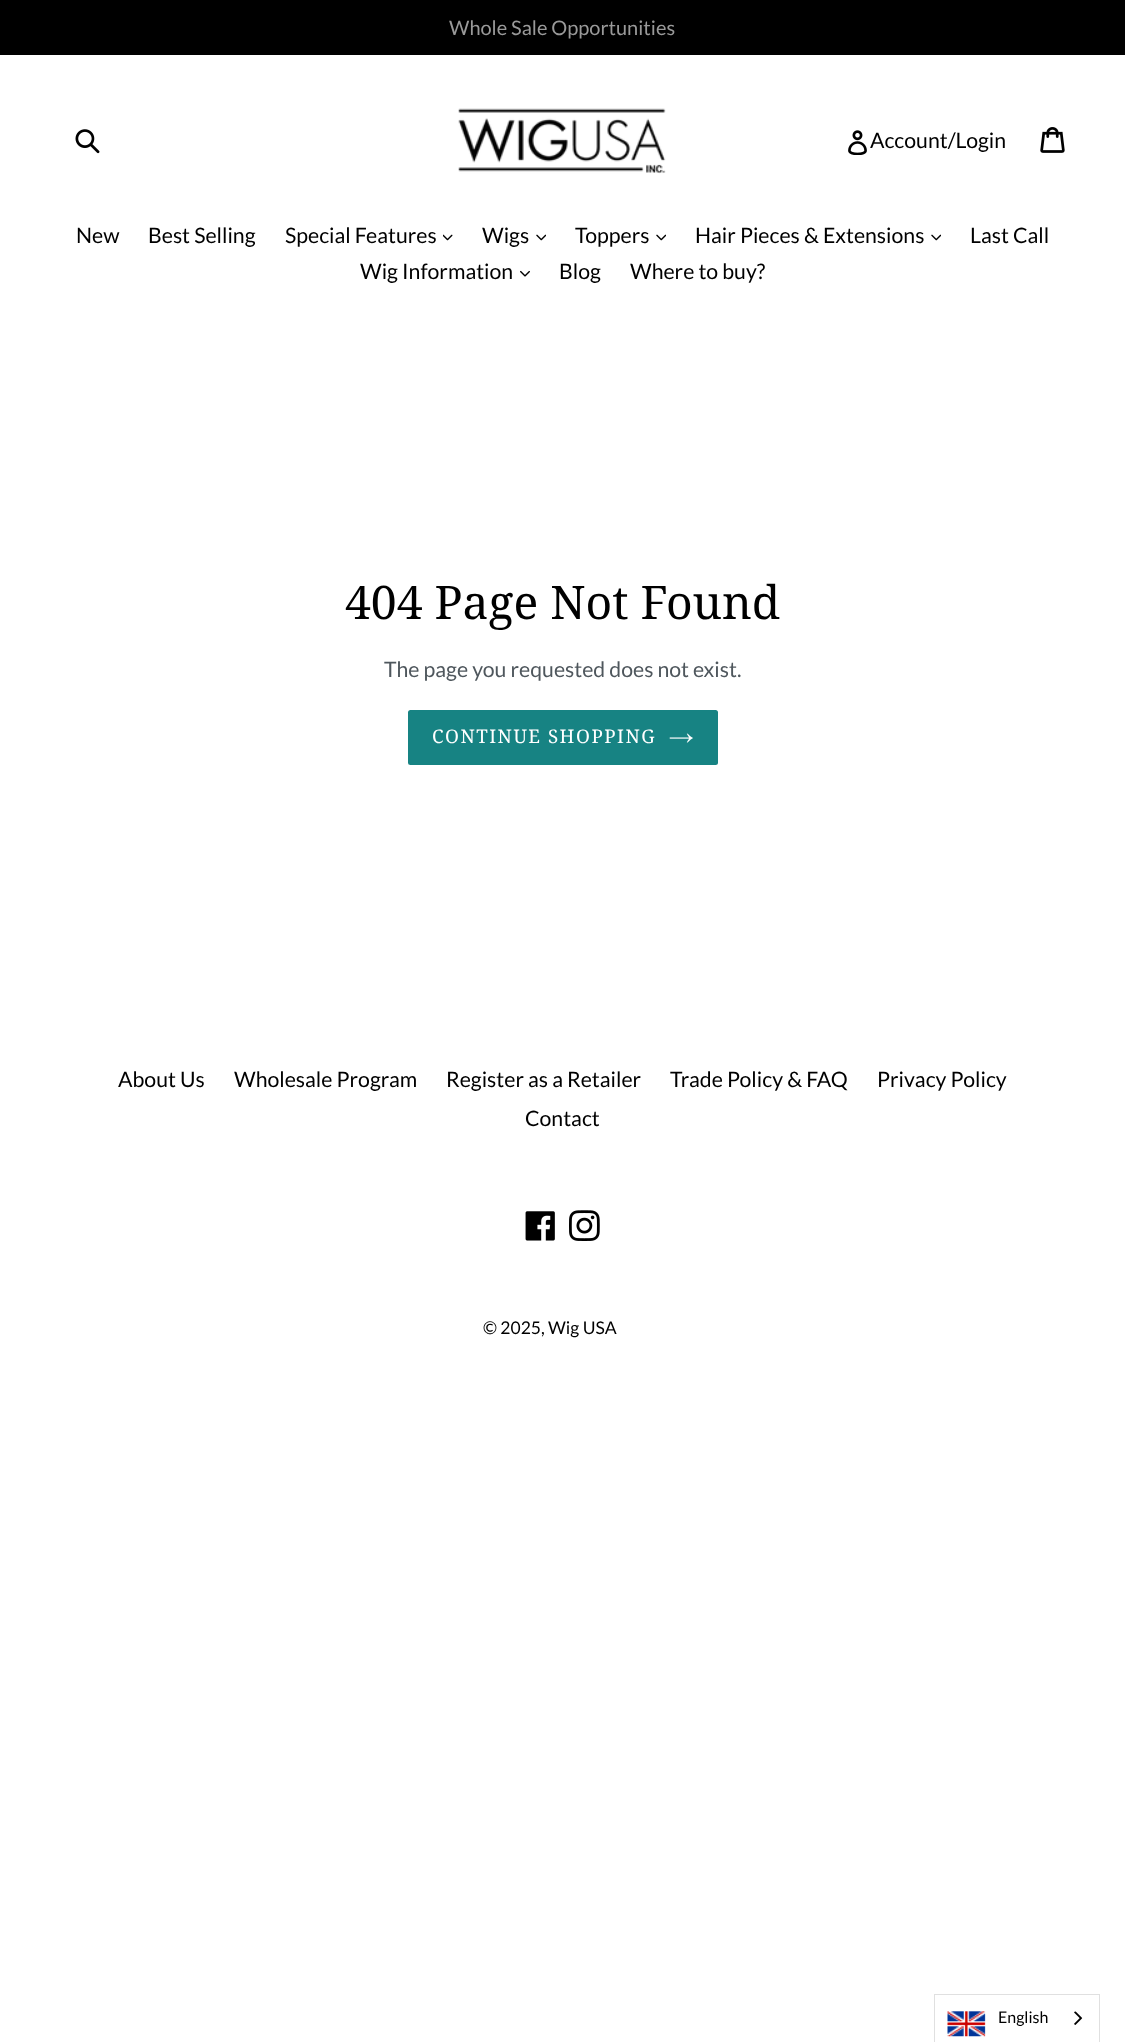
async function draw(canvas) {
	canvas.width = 1125;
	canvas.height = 2042;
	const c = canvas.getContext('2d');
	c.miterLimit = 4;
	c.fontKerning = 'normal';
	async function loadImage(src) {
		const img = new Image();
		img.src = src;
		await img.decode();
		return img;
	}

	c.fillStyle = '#fff';
	c.fillRect(0, 0, 1125, 2042);
	c.fillStyle = '#000';
	c.fillRect(0, 0, 1125, 55);
	c.font = '20px Lato';
	c.fillStyle = '#999';
	c.fillText('Whole Sale Opportunities', 449, 35);
	c.drawImage(await loadImage('img1.png'), 75, 129, 25, 25);
	c.drawImage(await loadImage('img2.png'), 458, 108, 208, 66);
	c.drawImage(await loadImage('img3.png'), 848, 130, 19, 25);
	c.font = '21.25px Lato';
	c.fillStyle = '#000';
	c.fillText('Account/Login', 870, 148);
	c.drawImage(await loadImage('img4.png'), 1040, 127, 25, 26);
	for (const [text, x, y] of [
		['New', 76, 243],
		['Best Selling', 148, 243],
		['Special Features', 285, 243],
	]) {
		c.fillText(text, x, y);
	}
	c.drawImage(await loadImage('img5.png'), 443, 234, 10, 7);
	c.fillText('Wigs', 482, 243);
	c.drawImage(await loadImage('img6.png'), 536, 234, 10, 7);
	c.fillText('Toppers', 575, 243);
	c.drawImage(await loadImage('img6.png'), 656, 234, 10, 7);
	c.fillText('Hair Pieces & Extensions', 695, 243);
	c.drawImage(await loadImage('img6.png'), 931, 234, 10, 7);
	c.fillText('Last Call', 970, 243);
	c.fillText('Wig Information', 360, 279);
	c.drawImage(await loadImage('img7.png'), 520, 270, 10, 7);
	c.fillText('Blog', 559, 279);
	c.fillText('Where to buy?', 630, 279);
	c.font = '46.25px Droid Serif';
	c.fillText('404 Page Not Found', 345, 619);
	c.font = '21.25px Lato';
	c.fillStyle = '#4f575d';
	c.fillText('The page you requested does not exist.', 384, 677);
	c.fillStyle = '#178383';
	c.beginPath();
	c.roundRect(408, 710, 310, 55, 2.5);
	c.fill();
	c.letterSpacing = '1.5px';
	c.font = '18.75px Droid Serif';
	c.fillStyle = '#fff';
	c.fillText('CONTINUE SHOPPING', 432, 743);
	c.drawImage(await loadImage('img8.png'), 669, 733, 24, 10);
	c.letterSpacing = '0px';
	c.font = '21.25px Lato';
	c.fillStyle = '#000';
	for (const [text, x, y] of [
		['About Us', 118, 1087],
		['Wholesale Program', 234, 1087],
		['Register as a Retailer', 446, 1087],
		['Trade Policy & FAQ', 670, 1087],
		['Privacy Policy', 877, 1087],
		['Contact', 525, 1126],
	]) {
		c.fillText(text, x, y);
	}
	c.drawImage(await loadImage('img9.png'), 525, 1211, 30, 30);
	c.drawImage(await loadImage('img10.png'), 569, 1210, 31, 31);
	c.font = '17.5px Lato';
	c.fillText('© 2025, Wig USA', 483, 1334);
	c.strokeStyle = '#e0e0e0';
	c.strokeRect(934.5, 1994.5, 165, 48);
	c.drawImage(await loadImage('img11.png'), 947, 2011, 39, 26);
	c.font = '16px Lato';
	c.fillText('English', 998, 2023);
	c.drawImage(await loadImage('img12.png'), 1074, 2011, 9, 14);
}

draw(document.querySelector('canvas'));
